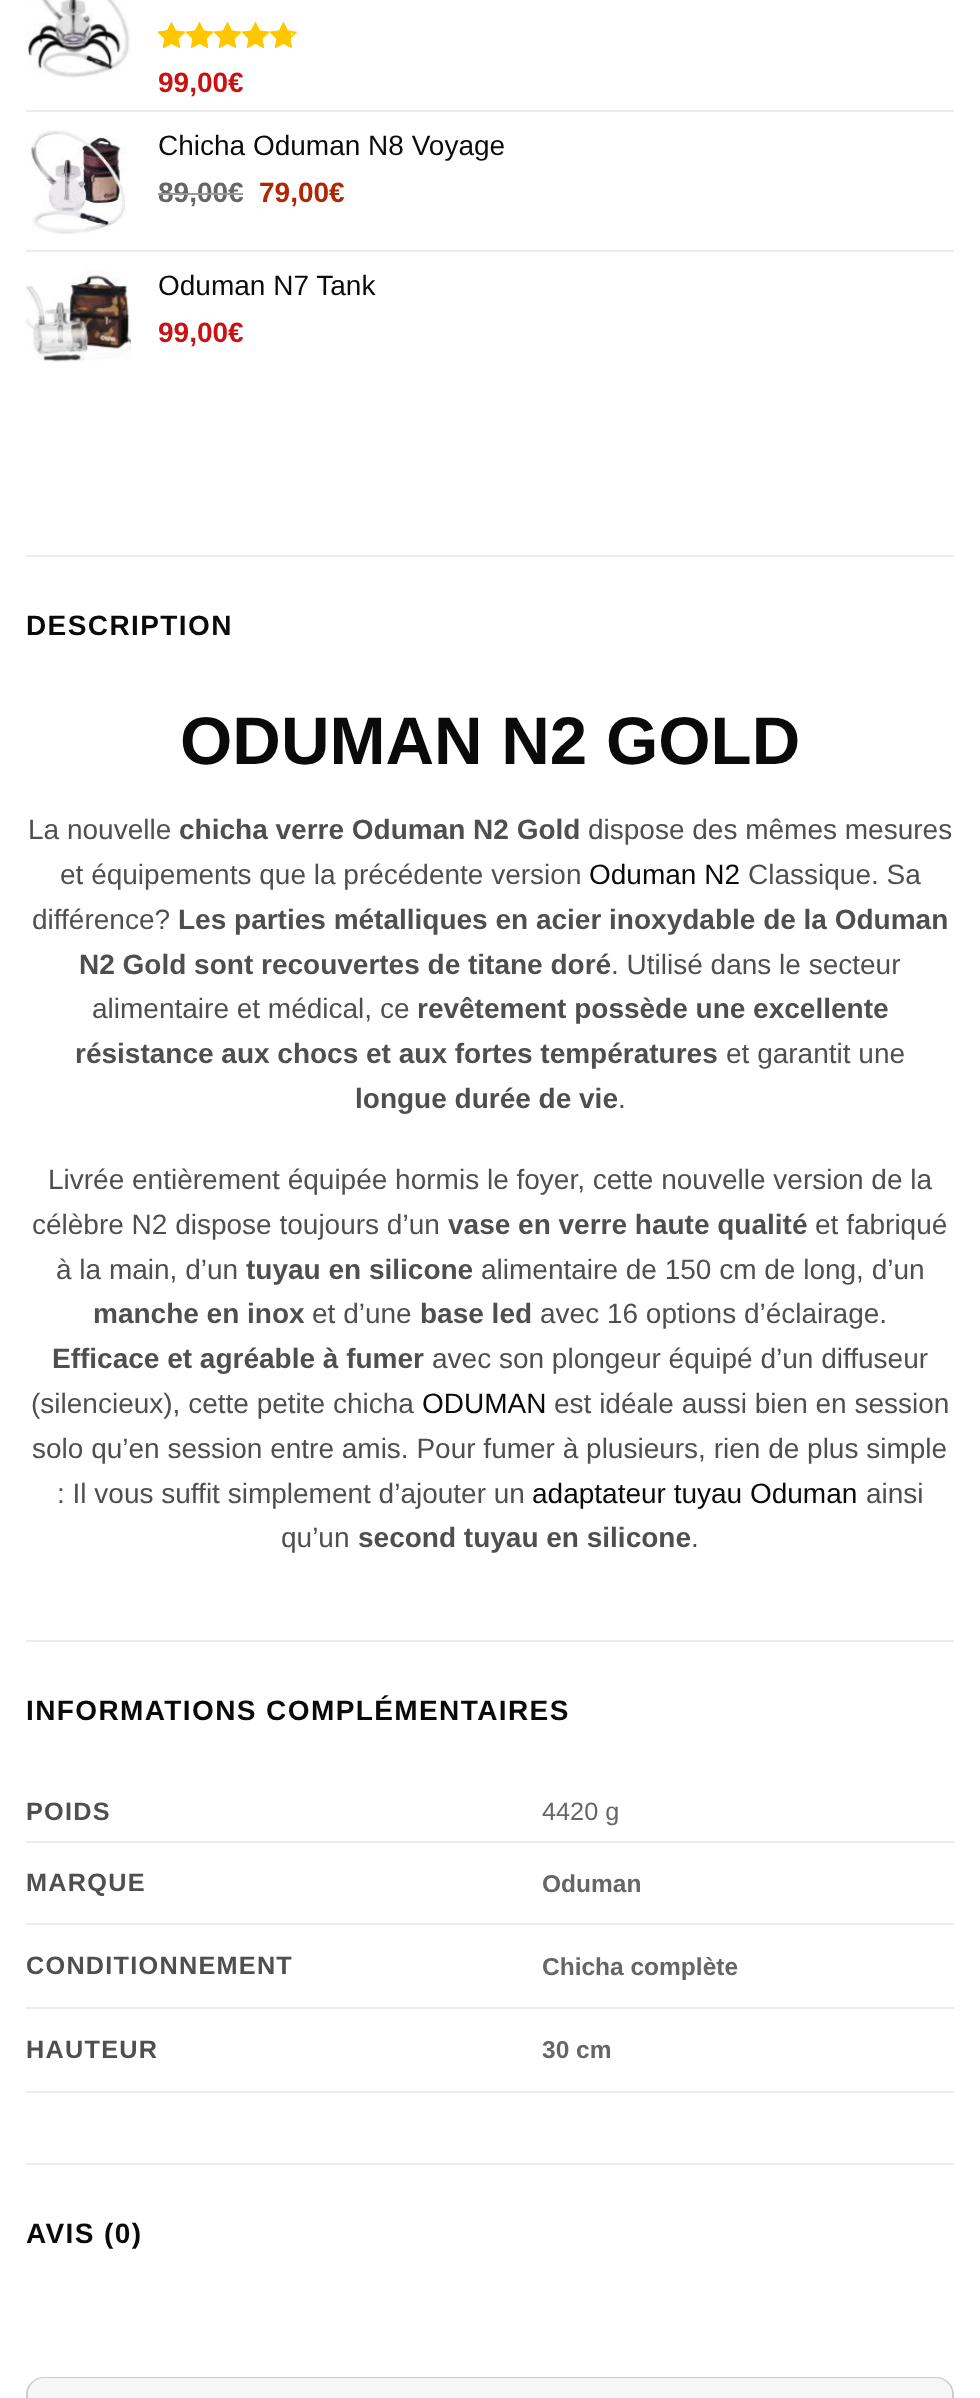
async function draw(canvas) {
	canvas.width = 980;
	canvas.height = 2398;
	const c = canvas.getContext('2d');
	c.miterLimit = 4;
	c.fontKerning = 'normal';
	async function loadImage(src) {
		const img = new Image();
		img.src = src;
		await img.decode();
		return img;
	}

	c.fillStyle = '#fff';
	c.fillRect(0, 0, 980, 2398);
	c.drawImage(await loadImage('img1.png'), 26, 0, 105, 78);
	c.drawImage(await loadImage('img2.png'), 158, 21, 140, 28);
	c.drawImage(await loadImage('img3.png'), 158, 21, 133, 28);
	c.drawImage(await loadImage('img4.png'), 158, 21, 17, 28);
	c.font = 'bold 28px Liberation Sans';
	c.fillStyle = '#c91313';
	c.fillText('99,00€', 158, 92);
	c.fillStyle = '#ececec';
	c.fillRect(26, 110, 928, 2);
	c.drawImage(await loadImage('img5.png'), 30, 130, 97, 104);
	c.font = '28px Liberation Sans';
	c.fillStyle = '#0a0a0a';
	c.fillText('Chicha Oduman N8 Voyage', 158, 155);
	c.font = 'bold 28px Liberation Sans';
	c.fillStyle = '#666';
	c.fillText('89,00', 158, 202);
	c.fillStyle = '#9a9b9b';
	c.fillRect(158, 193, 70, 2);
	c.fillStyle = '#666';
	c.fillText('€', 228, 202);
	c.fillStyle = '#9a9b9b';
	c.fillRect(228, 193, 15, 2);
	c.fillStyle = '#b12704';
	c.fillText('79,00€', 259, 202);
	c.fillStyle = '#ececec';
	c.fillRect(26, 250, 928, 2);
	c.drawImage(await loadImage('img6.png'), 26, 269, 105, 93);
	c.font = '28px Liberation Sans';
	c.fillStyle = '#0a0a0a';
	c.fillText('Oduman N7 Tank', 158, 295);
	c.font = 'bold 28px Liberation Sans';
	c.fillStyle = '#c91313';
	c.fillText('99,00€', 158, 342);
	c.fillStyle = '#ececec';
	c.fillRect(26, 555, 928, 2);
	c.letterSpacing = '1.4px';
	c.fillStyle = '#0a0a0a';
	c.fillText('DESCRIPTION', 26, 635);
	c.letterSpacing = '0px';
	c.font = 'bold 67.25px Liberation Sans';
	c.fillText('ODUMAN N2 GOLD', 180, 764);
	c.font = '28px Liberation Sans';
	c.fillStyle = '#4f4f4f';
	c.fillText('La nouvelle', 28, 839);
	c.font = 'bold 28px Liberation Sans';
	c.fillText('chicha verre Oduman N2 Gold', 179, 839);
	c.font = '28px Liberation Sans';
	c.fillText('dispose des mêmes mesures', 588, 839);
	c.fillText('et équipements que la précédente version', 60, 884);
	c.fillStyle = '#0a0a0a';
	c.fillText('Oduman N2', 589, 884);
	c.fillStyle = '#4f4f4f';
	c.fillText('Classique. Sa', 748, 884);
	c.fillText('différence?', 32, 929);
	c.font = 'bold 28px Liberation Sans';
	c.fillText('Les parties métalliques en acier inoxydable de la Oduman', 178, 929);
	c.fillText('N2 Gold sont recouvertes de titane doré', 79, 974);
	c.font = '28px Liberation Sans';
	c.fillText('. Utilisé dans le secteur', 611, 974);
	c.fillText('alimentaire et médical, ce', 92, 1018);
	c.font = 'bold 28px Liberation Sans';
	c.fillText('revêtement possède une excellente', 417, 1018);
	c.fillText('résistance aux chocs et aux fortes températures', 75, 1063);
	c.font = '28px Liberation Sans';
	c.fillText('et garantit une', 726, 1063);
	c.font = 'bold 28px Liberation Sans';
	c.fillText('longue durée de vie', 355, 1108);
	c.font = '28px Liberation Sans';
	for (const [text, x, y] of [
		['.', 618, 1108],
		['Livrée entièrement équipée hormis le foyer, cette nouvelle version de la', 48, 1189],
		['célèbre N2 dispose toujours d’un', 32, 1234],
	]) {
		c.fillText(text, x, y);
	}
	c.font = 'bold 28px Liberation Sans';
	c.fillText('vase en verre haute qualité', 448, 1234);
	c.font = '28px Liberation Sans';
	c.fillText('et fabriqué', 815, 1234);
	c.fillText('à la main, d’un', 56, 1279);
	c.font = 'bold 28px Liberation Sans';
	c.fillText('tuyau en silicone', 246, 1279);
	c.font = '28px Liberation Sans';
	c.fillText('alimentaire de 150 cm de long, d’un', 481, 1279);
	c.font = 'bold 28px Liberation Sans';
	c.fillText('manche en inox', 93, 1323);
	c.font = '28px Liberation Sans';
	c.fillText('et d’une', 312, 1323);
	c.font = 'bold 28px Liberation Sans';
	c.fillText('base led', 420, 1323);
	c.font = '28px Liberation Sans';
	c.fillText('avec 16 options d’éclairage.', 540, 1323);
	c.font = 'bold 28px Liberation Sans';
	c.fillText('Efficace et agréable à fumer', 52, 1368);
	c.font = '28px Liberation Sans';
	c.fillText('avec son plongeur équipé d’un diffuseur', 432, 1368);
	c.fillText('(silencieux), cette petite chicha', 31, 1413);
	c.fillStyle = '#0a0a0a';
	c.fillText('ODUMAN', 422, 1413);
	c.fillStyle = '#4f4f4f';
	for (const [text, x, y] of [
		['est idéale aussi bien en session', 554, 1413],
		['solo qu’en session entre amis. Pour fumer à plusieurs, rien de plus simple', 32, 1458],
		[': Il vous suffit simplement d’ajouter un', 57, 1503],
	]) {
		c.fillText(text, x, y);
	}
	c.fillStyle = '#0a0a0a';
	c.fillText('adaptateur tuyau Oduman', 532, 1503);
	c.fillStyle = '#4f4f4f';
	c.fillText('ainsi', 866, 1503);
	c.fillText('qu’un', 281, 1547);
	c.font = 'bold 28px Liberation Sans';
	c.fillText('second tuyau en silicone', 358, 1547);
	c.font = '28px Liberation Sans';
	c.fillText('.', 691, 1547);
	c.fillStyle = '#ececec';
	c.fillRect(26, 1640, 928, 2);
	c.letterSpacing = '1.4px';
	c.font = 'bold 28px Liberation Sans';
	c.fillStyle = '#0a0a0a';
	c.fillText('INFORMATIONS COMPLÉMENTAIRES', 26, 1720);
	c.fillStyle = '#ececec';
	c.fillRect(26, 1841, 928, 2);
	c.letterSpacing = '1.25px';
	c.font = 'bold 25.25px Liberation Sans';
	c.fillStyle = '#4f4f4f';
	c.fillText('POIDS', 26, 1820);
	c.letterSpacing = '0px';
	c.font = '25.25px Liberation Sans';
	c.fillStyle = '#666';
	c.fillText('4420 g', 542, 1820);
	c.fillStyle = '#ececec';
	c.fillRect(26, 1923, 928, 2);
	c.letterSpacing = '1.25px';
	c.font = 'bold 25.25px Liberation Sans';
	c.fillStyle = '#4f4f4f';
	c.fillText('MARQUE', 26, 1891);
	c.letterSpacing = '0px';
	c.font = 'bold 24.5px Liberation Sans';
	c.fillStyle = '#666';
	c.fillText('Oduman', 542, 1892);
	c.fillStyle = '#ececec';
	c.fillRect(26, 2007, 928, 2);
	c.letterSpacing = '1.25px';
	c.font = 'bold 25.25px Liberation Sans';
	c.fillStyle = '#4f4f4f';
	c.fillText('CONDITIONNEMENT', 26, 1974);
	c.letterSpacing = '0px';
	c.font = 'bold 24.5px Liberation Sans';
	c.fillStyle = '#666';
	c.fillText('Chicha complète', 542, 1975);
	c.fillStyle = '#ececec';
	c.fillRect(26, 2091, 928, 2);
	c.letterSpacing = '1.25px';
	c.font = 'bold 25.25px Liberation Sans';
	c.fillStyle = '#4f4f4f';
	c.fillText('HAUTEUR', 26, 2058);
	c.letterSpacing = '0px';
	c.font = 'bold 24.5px Liberation Sans';
	c.fillStyle = '#666';
	c.fillText('30 cm', 542, 2058);
	c.fillStyle = '#ececec';
	c.fillRect(26, 2163, 928, 2);
	c.letterSpacing = '1.4px';
	c.font = 'bold 28px Liberation Sans';
	c.fillStyle = '#0a0a0a';
	c.fillText('AVIS (0)', 26, 2243);
	c.beginPath();
	c.roundRect(27, 2378, 926, 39, 17);
	c.strokeStyle = '#cacaca';
	c.lineWidth = 2;
	c.stroke();
	c.fillStyle = '#f6f6f6';
	c.beginPath();
	c.roundRect(28, 2378, 924, 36, 16);
	c.fill();
}

draw(document.querySelector('canvas'));
